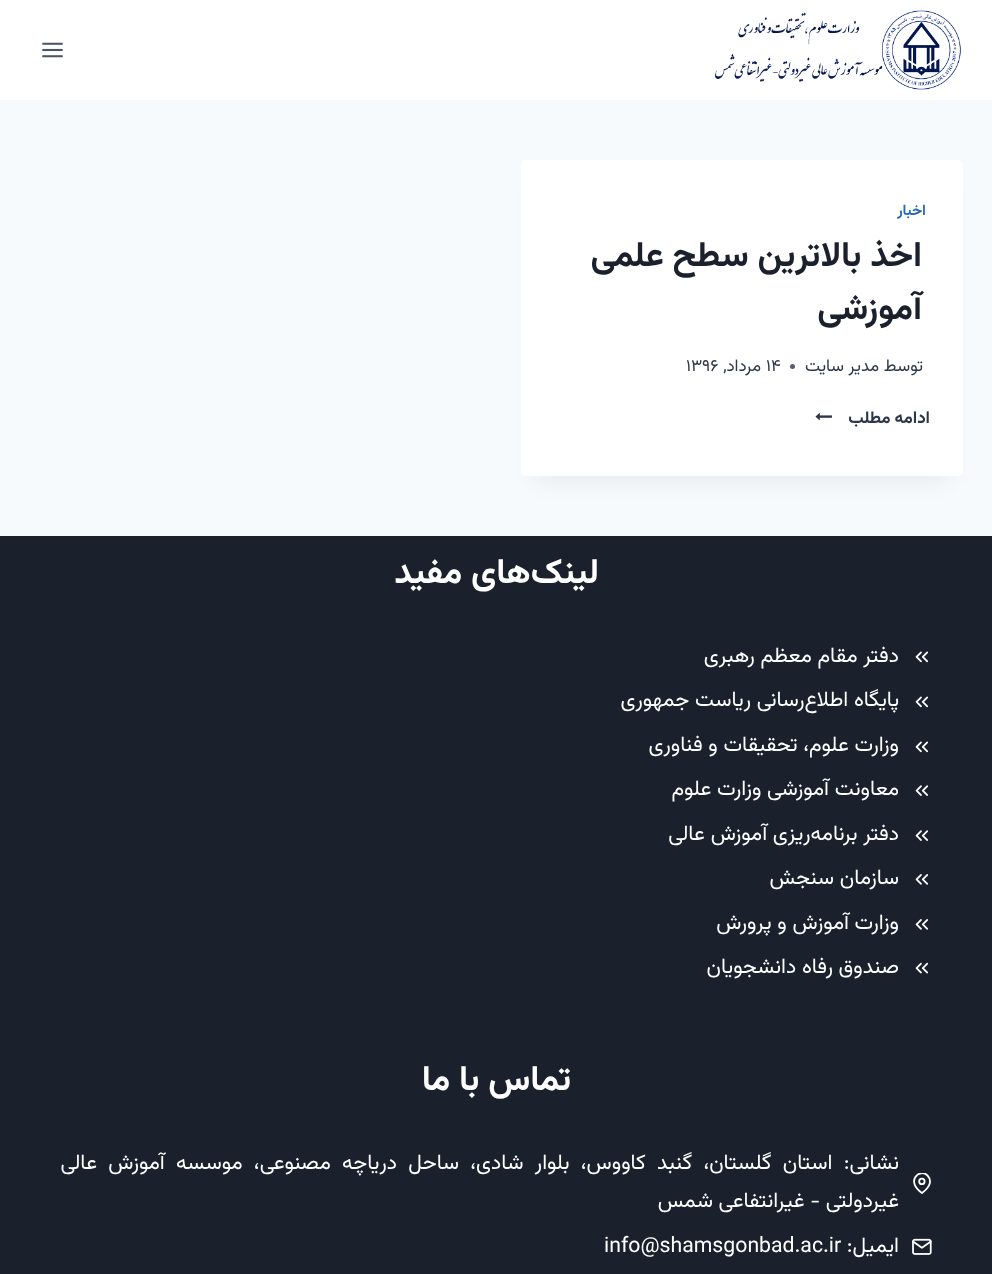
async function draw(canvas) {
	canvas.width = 992;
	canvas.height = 1274;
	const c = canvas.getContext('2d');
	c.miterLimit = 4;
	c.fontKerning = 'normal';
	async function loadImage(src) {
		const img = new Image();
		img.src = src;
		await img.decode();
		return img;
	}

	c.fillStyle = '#f7fafc';
	c.fillRect(0, 0, 992, 1274);
	c.fillStyle = '#fff';
	c.fillRect(0, 0, 992, 100);
	c.drawImage(await loadImage('img1.png'), 715, 10, 246, 80);
	c.drawImage(await loadImage('img2.png'), 42, 42, 21, 16);
	c.fillStyle = '#0000000d';
	c.filter = 'blur(9.5px)';
	c.beginPath();
	c.rect(534, 191, 416, 292);
	c.fill();
	c.filter = 'none';
	c.fillStyle = '#fff';
	c.beginPath();
	c.roundRect(521, 160, 442, 316, 5);
	c.fill();
	c.letterSpacing = '0.75px';
	c.direction = 'rtl';
	c.font = 'bold 15px Vazirmatn';
	c.fillStyle = '#2b6cb0';
	c.fillText('اخبار', 926, 215);
	c.letterSpacing = '0px';
	c.font = 'bold 35px Vazirmatn';
	c.fillStyle = '#1a202c';
	c.fillText('اخذ بالاترین سطح علمی', 922, 266);
	c.fillText('آموزشی', 922, 319);
	c.font = '17px Vazirmatn';
	c.fillStyle = '#2d3748';
	c.fillText('توسط', 923, 371);
	c.fillText('مدیر سایت', 879, 371);
	c.fillStyle = '#575f6d';
	c.beginPath();
	c.arc(792.5, 366.5, 2.5, 0, 2 * Math.PI);
	c.fill();
	c.direction = 'ltr';
	c.fillStyle = '#2d3748';
	c.fillText('۱۴', 766, 371);
	c.direction = 'rtl';
	c.fillText('مرداد,', 761, 371);
	c.direction = 'ltr';
	c.fillText('۱۳۹۶', 686, 371);
	c.letterSpacing = '0.75px';
	c.wordSpacing = '-1px';
	c.direction = 'rtl';
	c.font = 'bold 17px Vazirmatn';
	c.fillText('ادامه مطلب', 930, 423);
	c.drawImage(await loadImage('img3.png'), 815, 413, 17, 8);
	c.fillStyle = '#1a202c';
	c.fillRect(0, 536, 992, 738);
	c.letterSpacing = '0px';
	c.wordSpacing = '0px';
	c.font = 'bold 35px Vazirmatn';
	c.fillStyle = '#fff';
	c.fillText('لینک‌های مفید', 599, 583);
	c.drawImage(await loadImage('img4.png'), 915, 651, 14, 12);
	c.font = '21.25px Vazirmatn';
	c.fillText('دفتر مقام معظم رهبری', 899, 662);
	c.drawImage(await loadImage('img4.png'), 915, 696, 14, 12);
	c.fillText('پایگاه اطلاع‌رسانی ریاست جمهوری', 899, 706);
	c.drawImage(await loadImage('img4.png'), 915, 741, 14, 12);
	c.fillText('وزارت علوم، تحقیقات و فناوری', 899, 751);
	c.drawImage(await loadImage('img5.png'), 915, 785, 14, 11);
	c.fillText('معاونت آموزشی وزارت علوم', 899, 795);
	c.drawImage(await loadImage('img5.png'), 915, 830, 14, 11);
	c.fillText('دفتر برنامه‌ریزی آموزش عالی', 899, 840);
	c.drawImage(await loadImage('img6.png'), 915, 874, 14, 11);
	c.fillText('سازمان سنجش', 899, 884);
	c.drawImage(await loadImage('img6.png'), 915, 919, 14, 11);
	c.fillText('وزارت آموزش و پرورش', 899, 929);
	c.drawImage(await loadImage('img7.png'), 915, 962, 14, 12);
	c.fillText('صندوق رفاه دانشجویان', 899, 973);
	c.font = 'bold 35px Vazirmatn';
	c.fillText('تماس با ما', 571, 1090);
	c.save();
	c.beginPath();
	c.rect(911, 1173, 22, 21);
	c.clip();
	c.beginPath();
	c.moveTo(930, 1181.5);
	c.bezierCurveTo(930, 1187.5, 922, 1193, 922, 1193);
	c.bezierCurveTo(905, 1181.5, 919.5, 1167.5, 927.5, 1175.5);
	c.bezierCurveTo(929, 1177, 930, 1179.5, 930, 1181.5);
	c.closePath();
	c.strokeStyle = '#fff';
	c.lineWidth = 1.8;
	c.lineCap = 'round';
	c.lineJoin = 'round';
	c.stroke();
	c.restore();
	c.beginPath();
	c.arc(921.9, 1181.4, 2.7, 0, 2 * Math.PI);
	c.strokeStyle = '#fff';
	c.lineWidth = 1.8;
	c.stroke();
	c.wordSpacing = '5.6px';
	c.font = '21.25px Vazirmatn';
	c.fillText('نشانی: استان گلستان، گنبد کاووس، بلوار شادی، ساحل دریاچه مصنوعی، موسسه آموزش عالی', 899, 1169);
	c.wordSpacing = '0px';
	c.fillText('غیردولتی - غیرانتفاعی شمس', 899, 1207);
	c.drawImage(await loadImage('img8.png'), 912, 1238, 20, 17);
	c.fillText('ایمیل:', 899, 1252);
	c.direction = 'ltr';
	c.fillText('info@shamsgonbad.ac.ir', 604, 1252);
}

draw(document.querySelector('canvas'));
